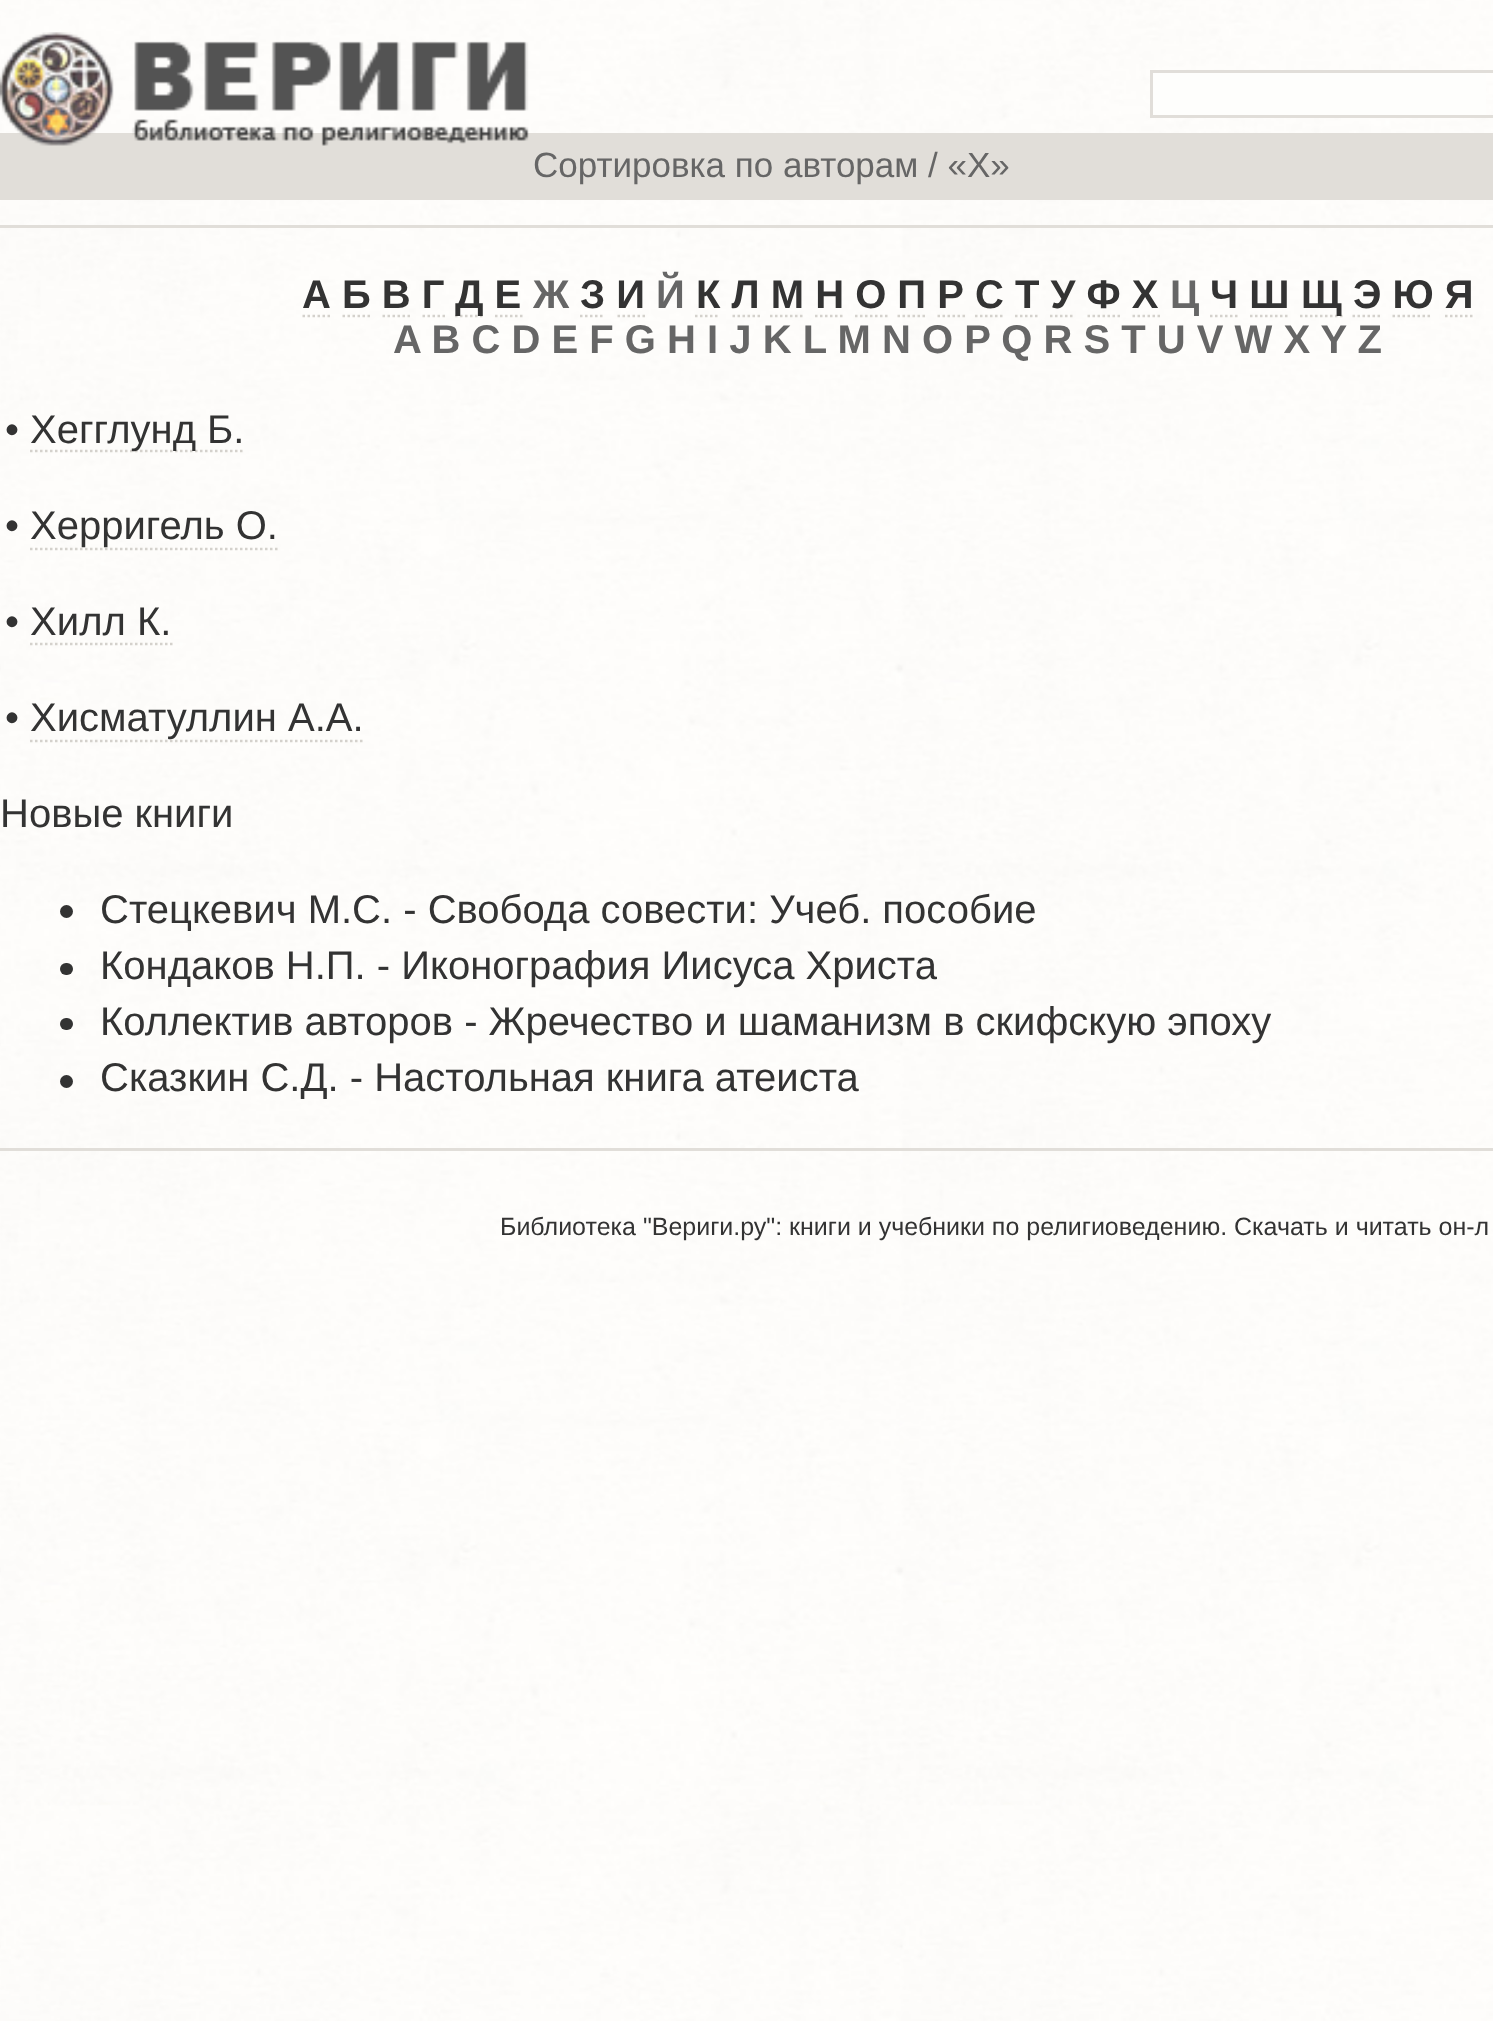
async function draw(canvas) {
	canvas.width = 1493;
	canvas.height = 2021;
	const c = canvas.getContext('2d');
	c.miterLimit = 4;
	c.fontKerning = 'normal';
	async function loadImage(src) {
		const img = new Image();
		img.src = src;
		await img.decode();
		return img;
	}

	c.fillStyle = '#fff';
	c.fillRect(0, 0, 1493, 2021);
	c.drawImage(await loadImage('img1.png'), 0, 0, 1493, 2021);
	c.fillStyle = '#e1ded9';
	c.fillRect(0, 133, 1493, 67);
	c.drawImage(await loadImage('img2.png'), 0, 32, 529, 114);
	c.fillStyle = '#fefefc';
	c.fillRect(1153, 73, 333, 42);
	c.strokeStyle = '#e1ded9';
	c.lineWidth = 3;
	c.strokeRect(1151.5, 71.5, 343, 45);
	c.font = '35px Liberation Sans';
	c.fillStyle = '#666';
	c.fillText('Сортировка по авторам / «Х»', 533, 177);
	c.fillStyle = '#e1ded9';
	c.fillRect(0, 225, 1493, 3);
	c.font = 'bold 40px Liberation Sans';
	c.fillStyle = '#333';
	c.fillText('А Б В Г', 302, 308);
	c.beginPath();
	c.moveTo(302.5, 316);
	c.lineTo(330, 316);
	c.strokeStyle = '#d4d1cc';
	c.lineWidth = 2.5;
	c.setLineDash([2.5, 2.5]);
	c.stroke();
	c.beginPath();
	c.moveTo(342.5, 316);
	c.lineTo(370, 316);
	c.stroke();
	c.beginPath();
	c.moveTo(382.5, 316);
	c.lineTo(410, 316);
	c.moveTo(422.5, 316);
	c.lineTo(445, 316);
	c.stroke();
	c.beginPath();
	c.moveTo(455, 316);
	c.lineTo(485, 316);
	c.stroke();
	c.fillText('Д Е', 455, 308);
	c.beginPath();
	c.moveTo(495, 316);
	c.lineTo(522.5, 316);
	c.stroke();
	c.fillStyle = '#666';
	c.fillText('Ж', 533, 308);
	c.fillStyle = '#333';
	c.fillText('З И', 580, 308);
	c.beginPath();
	c.moveTo(580, 316);
	c.lineTo(605, 316);
	c.stroke();
	c.beginPath();
	c.moveTo(617.5, 316);
	c.lineTo(645, 316);
	c.stroke();
	c.fillStyle = '#666';
	c.fillText('Й', 656, 308);
	c.fillStyle = '#333';
	c.fillText('К Л М Н О П Р С Т У Ф Х', 696, 308);
	c.beginPath();
	c.moveTo(695, 316);
	c.lineTo(720, 316);
	c.stroke();
	c.beginPath();
	c.moveTo(732.5, 316);
	c.lineTo(760, 316);
	c.stroke();
	c.beginPath();
	c.moveTo(770, 316);
	c.lineTo(805, 316);
	c.stroke();
	c.beginPath();
	c.moveTo(815, 316);
	c.lineTo(845, 316);
	c.stroke();
	c.beginPath();
	c.moveTo(855, 316);
	c.lineTo(887.5, 316);
	c.stroke();
	c.beginPath();
	c.moveTo(897.5, 316);
	c.lineTo(927.5, 316);
	c.stroke();
	c.beginPath();
	c.moveTo(937.5, 316);
	c.lineTo(965, 316);
	c.stroke();
	c.beginPath();
	c.moveTo(975, 316);
	c.lineTo(1005, 316);
	c.moveTo(1015, 316);
	c.lineTo(1040, 316);
	c.stroke();
	c.beginPath();
	c.moveTo(1050, 316);
	c.lineTo(1075, 316);
	c.stroke();
	c.beginPath();
	c.moveTo(1087.5, 316);
	c.lineTo(1120, 316);
	c.stroke();
	c.beginPath();
	c.moveTo(1132.5, 316);
	c.lineTo(1160, 316);
	c.stroke();
	c.fillStyle = '#666';
	c.fillText('Ц', 1170, 308);
	c.fillStyle = '#333';
	c.fillText('Ч Ш', 1210, 308);
	c.beginPath();
	c.moveTo(1210, 316);
	c.lineTo(1237.5, 316);
	c.stroke();
	c.beginPath();
	c.moveTo(1250, 316);
	c.lineTo(1290, 316);
	c.stroke();
	c.beginPath();
	c.moveTo(1300, 316);
	c.lineTo(1342.5, 316);
	c.stroke();
	c.fillText('Щ Э Ю Я', 1301, 308);
	c.beginPath();
	c.moveTo(1352.5, 316);
	c.lineTo(1380, 316);
	c.stroke();
	c.beginPath();
	c.moveTo(1392.5, 316);
	c.lineTo(1432.5, 316);
	c.stroke();
	c.beginPath();
	c.moveTo(1445, 316);
	c.lineTo(1472.5, 316);
	c.stroke();
	c.fillStyle = '#666';
	c.fillText('A B C D E F G H I J K L M N O P Q R S T U V W X Y Z', 393, 353);
	c.font = '40px Liberation Sans';
	c.fillStyle = '#333';
	c.fillText('•', 5, 443);
	c.beginPath();
	c.moveTo(30, 451);
	c.lineTo(245, 451);
	c.stroke();
	c.fillText('Хегглунд Б.', 30, 443);
	c.fillText('•', 5, 539);
	c.beginPath();
	c.moveTo(30, 549);
	c.lineTo(277.5, 549);
	c.stroke();
	c.fillText('Херригель О.', 30, 539);
	c.fillText('• Хилл К.', 5, 635);
	c.beginPath();
	c.moveTo(30, 644);
	c.lineTo(172.5, 644);
	c.stroke();
	c.fillText('•', 5, 731);
	c.beginPath();
	c.moveTo(30, 741);
	c.lineTo(362.5, 741);
	c.stroke();
	c.fillText('Хисматуллин А.А.', 30, 731);
	c.fillText('Новые книги', 0, 827);
	c.beginPath();
	c.arc(66.5, 911.5, 6.5, 0, 2 * Math.PI);
	c.fill();
	c.fillText('Стецкевич М.С. - Свобода совести: Учеб. пособие', 100, 923);
	c.beginPath();
	c.roundRect(60, 963, 13, 12, 6);
	c.fill();
	c.fillText('Кондаков Н.П. - Иконография Иисуса Христа', 100, 979);
	c.beginPath();
	c.roundRect(60, 1018, 13, 12, 6);
	c.fill();
	c.fillText('Коллектив авторов - Жречество и шаманизм в скифскую эпоху', 100, 1035);
	c.beginPath();
	c.arc(66.5, 1081.5, 6.5, 0, 2 * Math.PI);
	c.fill();
	c.fillText('Сказкин С.Д. - Настольная книга атеиста', 100, 1091);
	c.fillStyle = '#e1ded9';
	c.fillRect(0, 1148, 1493, 3);
	c.font = '25px Liberation Sans';
	c.fillStyle = '#333';
	c.fillText('Библиотека "Вериги.ру": книги и учебники по религиоведению. Скачать и читать он-л', 500, 1235);
}

draw(document.querySelector('canvas'));
